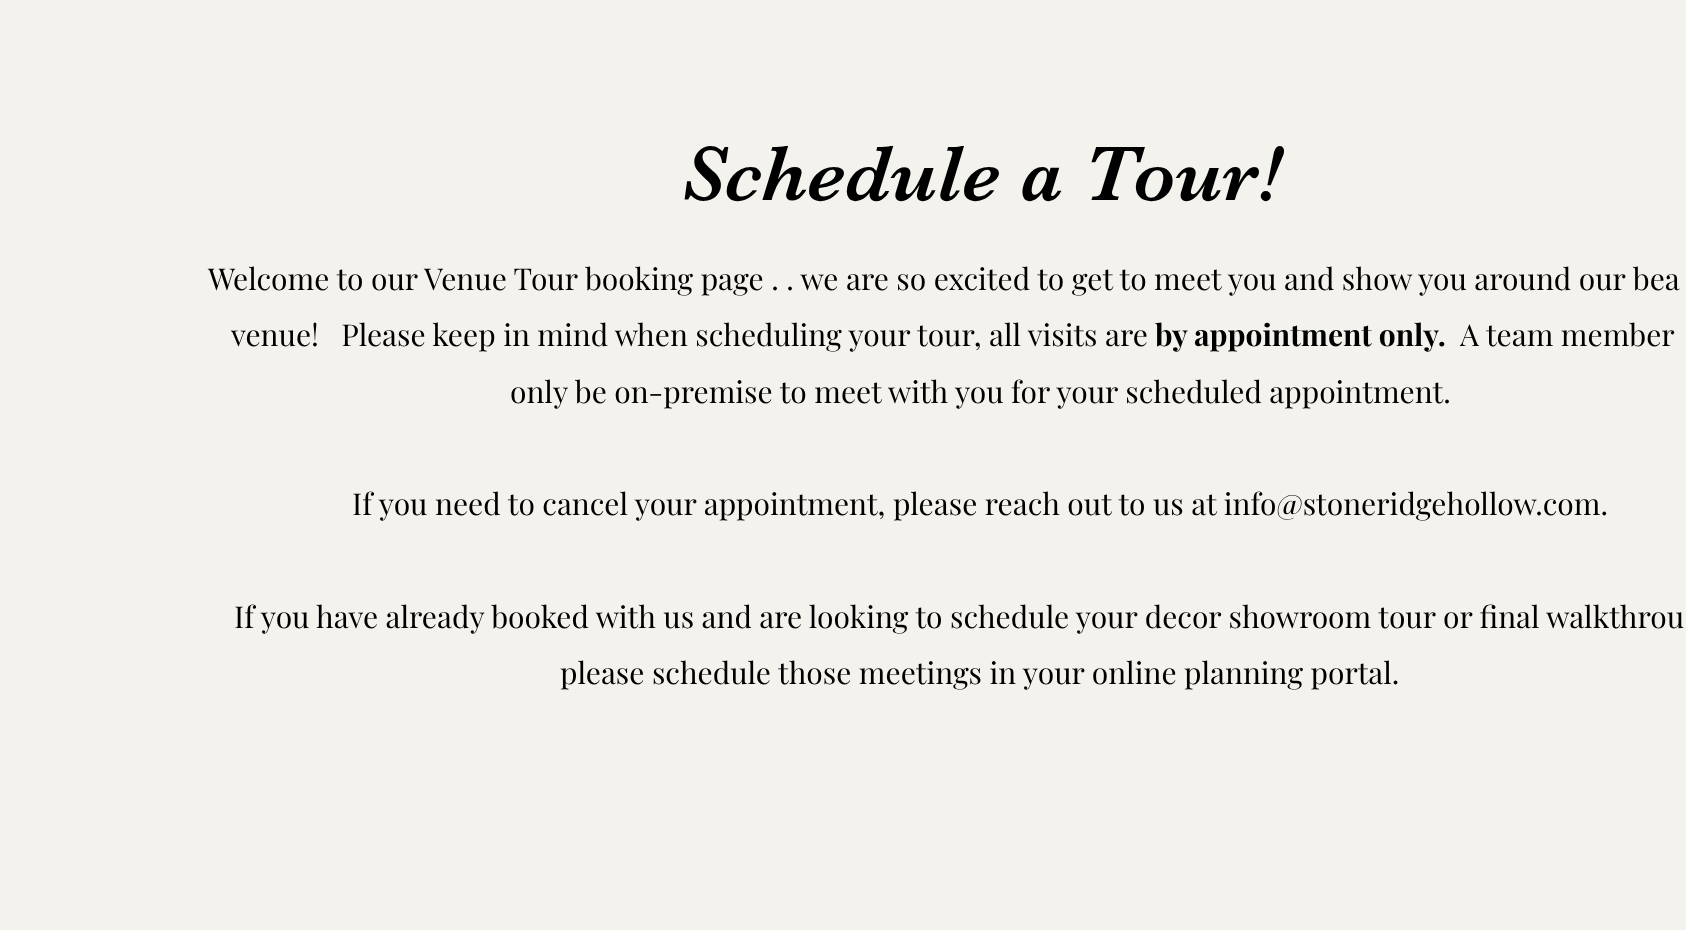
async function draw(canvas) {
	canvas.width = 1686;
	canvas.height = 930;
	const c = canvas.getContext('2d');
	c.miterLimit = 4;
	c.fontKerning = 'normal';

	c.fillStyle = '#f4f2ec';
	c.fillRect(0, 0, 1686, 930);
	c.font = '80px "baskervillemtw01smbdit"';
	c.fillStyle = '#000';
	c.fillText('Schedule a Tour!', 681, 200);
	c.font = '30px Playfair Display';
	c.fillText('Welcome to our Venue Tour booking page . . we are so excited to get to meet you and show you around our bea', 208, 290);
	c.fillText('venue!   Please keep in mind when scheduling your tour, all visits are', 231, 346);
	c.font = 'bold 30px Playfair Display';
	c.fillText('by appointment only.', 1155, 346);
	c.font = '30px Playfair Display';
	for (const [text, x, y] of [
		['A team member', 1460, 346],
		['only be on-premise to meet with you for your scheduled appointment.', 510, 403],
		['If you need to cancel your appointment, please reach out to us at info@stoneridgehollow.com.', 352, 515],
		['If you have already booked with us and are looking to schedule your decor showroom tour or final walkthrou', 234, 628],
		['please schedule those meetings in your online planning portal.', 560, 684],
	]) {
		c.fillText(text, x, y);
	}
}

draw(document.querySelector('canvas'));
